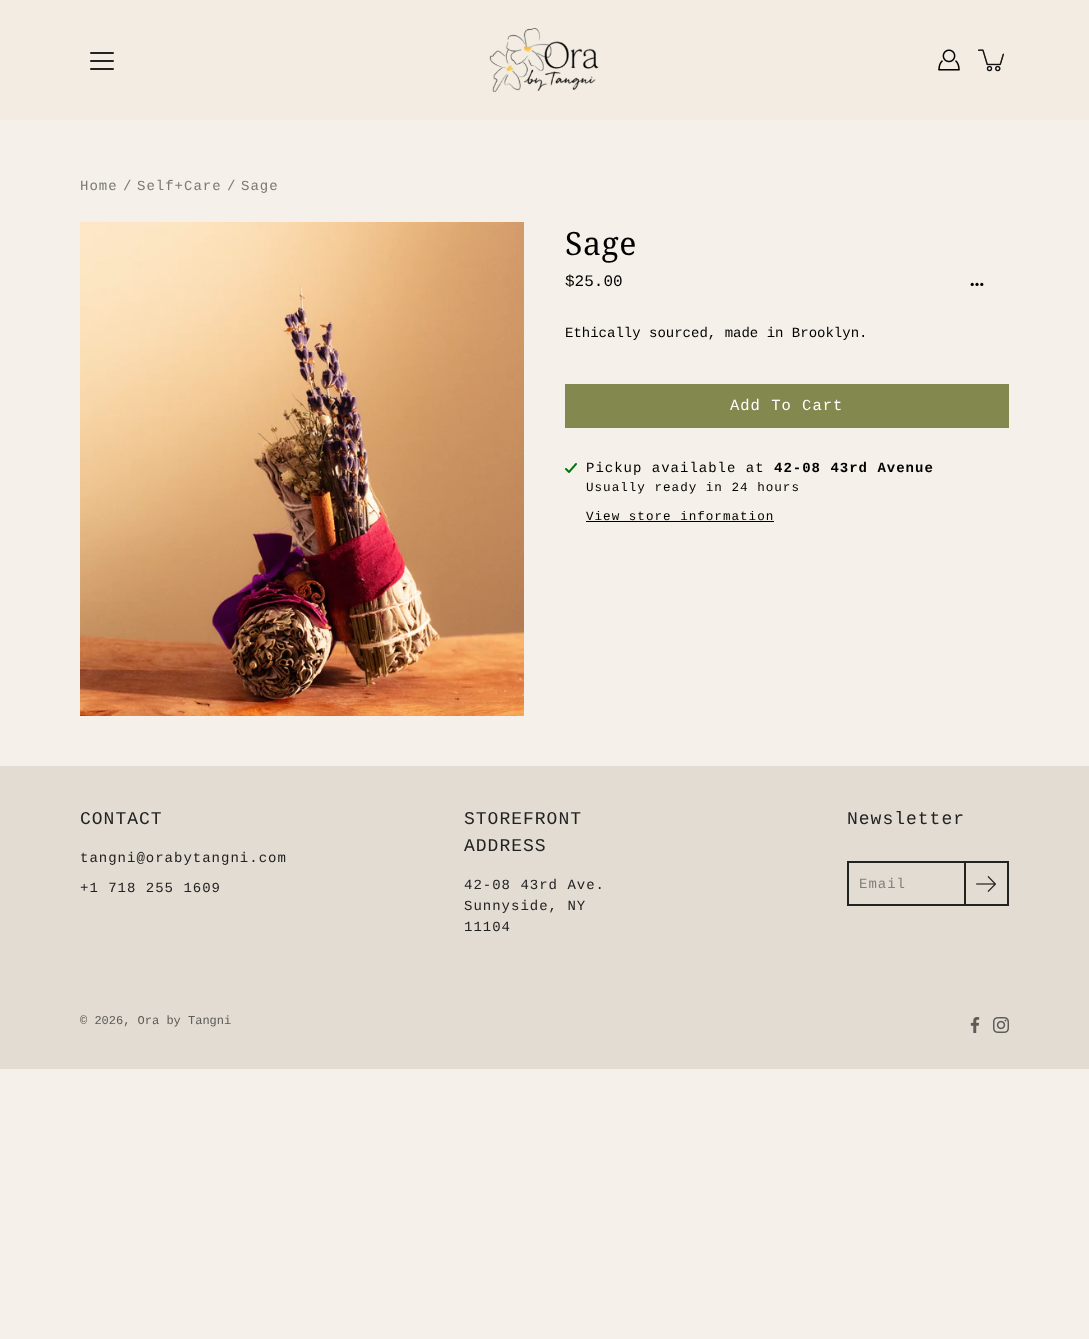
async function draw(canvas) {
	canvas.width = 1089;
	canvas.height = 1339;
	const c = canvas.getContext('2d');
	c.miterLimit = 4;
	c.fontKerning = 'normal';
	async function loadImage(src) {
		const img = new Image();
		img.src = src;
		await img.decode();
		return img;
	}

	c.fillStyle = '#f5f1ea';
	c.fillRect(0, 0, 1089, 1339);
	c.fillStyle = '#f2ece2';
	c.fillRect(0, 0, 1089, 120);
	c.drawImage(await loadImage('img1.png'), 489, 28, 110, 64);
	c.fillStyle = '#222';
	c.beginPath();
	c.roundRect(90, 60, 24, 2, 1);
	c.fill();
	c.beginPath();
	c.roundRect(90, 52, 24, 2, 1);
	c.fill();
	c.beginPath();
	c.roundRect(90, 68, 24, 2, 1);
	c.fill();
	c.drawImage(await loadImage('img2.png'), 938, 49, 22, 22);
	c.drawImage(await loadImage('img3.png'), 978, 49, 26, 23);
	c.letterSpacing = '1px';
	c.font = '14px Liberation Mono';
	c.fillStyle = '#7b7975';
	for (const [text, x, y] of [
		['Home', 80, 190],
		['/', 123, 190],
		['Self+Care', 137, 190],
		['/', 227, 190],
		['Sage', 241, 190],
	]) {
		c.fillText(text, x, y);
	}
	c.drawImage(await loadImage('img4.png'), 80, 222, 444, 494);
	c.letterSpacing = '0.5px';
	c.font = '32px Noto Serif';
	c.fillStyle = '#000';
	c.fillText('Sage', 565, 255);
	c.letterSpacing = '0px';
	c.font = '16px Liberation Mono';
	c.fillText('$25.00', 565, 286);
	c.beginPath();
	c.arc(972.2, 284.4, 1.6, 0, 2 * Math.PI);
	c.fill();
	c.beginPath();
	c.arc(977, 284.4, 1.6, 0, 2 * Math.PI);
	c.fill();
	c.beginPath();
	c.arc(981.8, 284.4, 1.6, 0, 2 * Math.PI);
	c.fill();
	c.font = '14px Liberation Mono';
	c.fillText('Ethically sourced, made in Brooklyn.', 565, 337);
	c.fillStyle = '#83884e';
	c.fillRect(565, 384, 444, 44);
	c.letterSpacing = '1px';
	c.font = '15.5px Liberation Mono';
	c.fillStyle = '#fff';
	c.fillText('Add To Cart', 730, 410);
	c.drawImage(await loadImage('img5.png'), 565, 463, 12, 10);
	c.font = '14px Liberation Mono';
	c.fillStyle = '#000';
	c.fillText('Pickup available at', 586, 472);
	c.font = 'bold 14px Liberation Mono';
	c.fillText('42-08 43rd Avenue', 774, 472);
	c.font = '12.6px Liberation Mono';
	c.fillText('Usually ready in 24 hours', 586, 491);
	c.fillText('View store information', 586, 520);
	c.fillRect(586, 521, 188, 1);
	c.fillStyle = '#e2dcd3';
	c.fillRect(0, 766, 1089, 303);
	c.font = '18px Liberation Mono';
	c.fillStyle = '#222';
	c.fillText('CONTACT', 80, 824);
	c.font = '14px Liberation Mono';
	c.fillText('tangni@orabytangni.com', 80, 862);
	c.fillText('+1 718 255 1609', 80, 892);
	c.font = '18px Liberation Mono';
	c.fillText('STOREFRONT', 464, 824);
	c.fillText('ADDRESS', 464, 851);
	c.font = '14px Liberation Mono';
	for (const [text, x, y] of [
		['42-08 43rd Ave.', 464, 889],
		['Sunnyside, NY', 464, 910],
		['11104', 464, 931],
	]) {
		c.fillText(text, x, y);
	}
	c.font = '18px Liberation Mono';
	c.fillText('Newsletter', 847, 824);
	c.strokeStyle = '#222';
	c.lineWidth = 2;
	c.strokeRect(848, 862, 160, 43);
	c.font = '14px Liberation Mono';
	c.fillStyle = '#827f7b';
	c.fillText('Email', 859, 888);
	c.strokeRect(965, 862, 43, 43);
	c.drawImage(await loadImage('img6.png'), 976, 876, 20, 16);
	c.letterSpacing = '0px';
	c.font = '12px Liberation Mono';
	c.fillStyle = '#5c5a57';
	c.fillText('© 2026, Ora by Tangni', 80, 1024);
	c.drawImage(await loadImage('img7.png'), 970, 1017, 10, 16);
	c.drawImage(await loadImage('img8.png'), 993, 1017, 16, 16);
}

draw(document.querySelector('canvas'));
